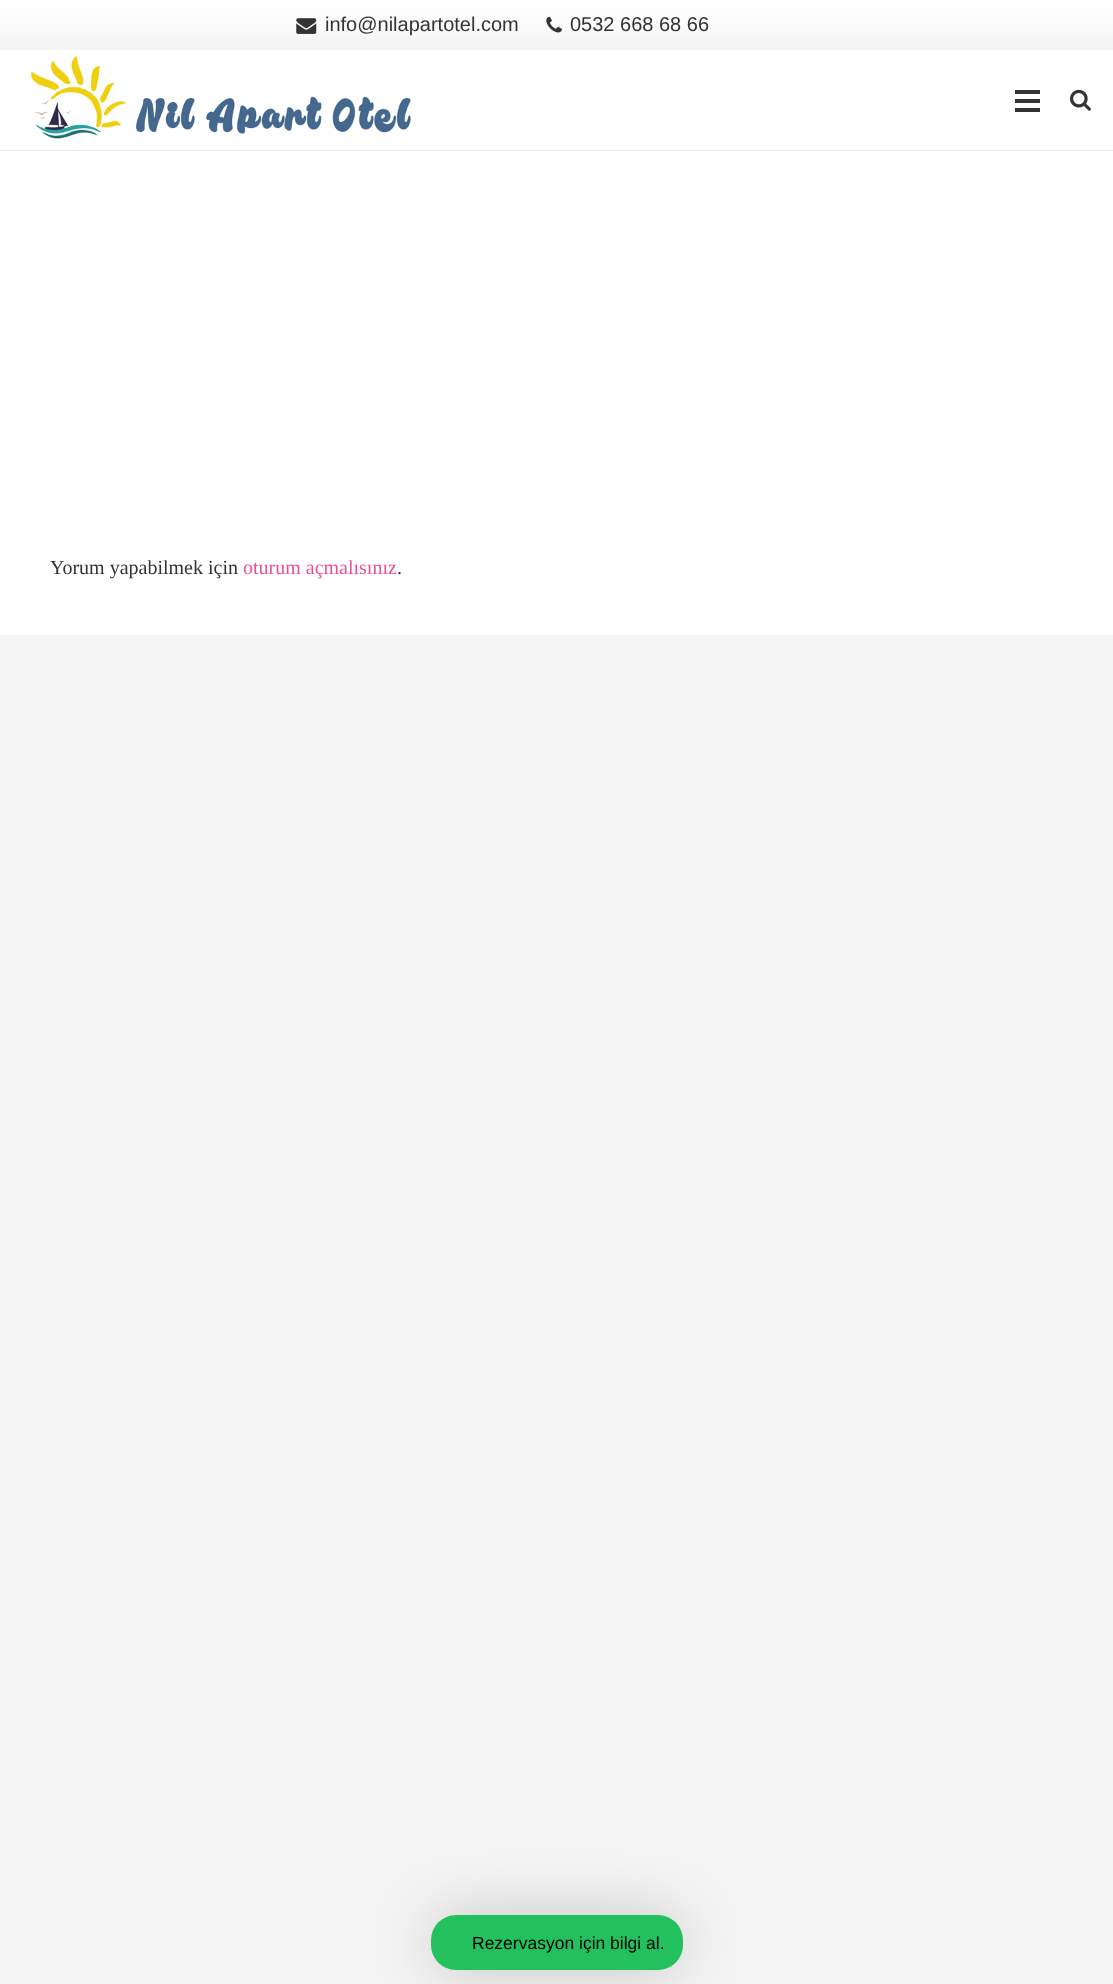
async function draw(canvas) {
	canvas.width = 1113;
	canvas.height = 1984;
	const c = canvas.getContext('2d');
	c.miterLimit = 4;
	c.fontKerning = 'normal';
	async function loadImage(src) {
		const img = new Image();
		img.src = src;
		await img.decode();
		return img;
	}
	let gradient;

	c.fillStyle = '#f5f5f5';
	c.fillRect(0, 0, 1113, 1984);
	c.fillStyle = '#fff';
	c.fillRect(0, 50, 1113, 585);
	gradient = c.createLinearGradient(557, 50, 557, 0);
	gradient.addColorStop(0, '#f5f5f5');
	gradient.addColorStop(1, '#fff');
	c.fillStyle = gradient;
	c.fillRect(0, 0, 1113, 38);
	c.drawImage(await loadImage('img1.png'), 296, 18, 21, 16);
	c.font = '20px Liberation Sans';
	c.fillStyle = '#333';
	c.fillText('info@nilapartotel.com', 325, 31);
	c.drawImage(await loadImage('img2.png'), 546, 16, 16, 17);
	c.fillText('0532 668 68 66', 570, 31);
	c.fillStyle = '#ebebeb';
	c.beginPath();
	c.moveTo(0, 150);
	c.lineTo(0, 151);
	c.lineTo(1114, 151);
	c.lineTo(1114, 51);
	c.lineTo(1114, 150);
	c.closePath();
	c.fill();
	c.drawImage(await loadImage('img3.png'), 30, 56, 381, 83);
	for (const [x, y, w, h, color] of [
		[1015, 99, 25, 4, '#333'],
		[1015, 90, 25, 4, '#333'],
		[1015, 108, 25, 4, '#333'],
	]) {
		c.fillStyle = color;
		c.fillRect(x, y, w, h);
	}
	c.drawImage(await loadImage('img4.png'), 1070, 89, 21, 22);
	c.font = '20px Liberation Serif';
	c.fillText('Yorum yapabilmek için', 50, 574);
	c.fillStyle = '#e95095';
	c.fillText('oturum açmalısınız', 243, 574);
	c.fillStyle = '#333';
	c.fillText('.', 397, 574);
	c.fillStyle = '#00000033';
	c.filter = 'blur(31px)';
	c.beginPath();
	c.roundRect(431, 1915, 252, 55, 25);
	c.fill();
	c.filter = 'none';
	c.fillStyle = '#22c15e';
	c.beginPath();
	c.roundRect(431, 1915, 252, 55, 25);
	c.fill();
	c.font = '17.5px Liberation Sans';
	c.fillStyle = '#000';
	c.fillText('Rezervasyon için bilgi al.', 472, 1949);
}

draw(document.querySelector('canvas'));
